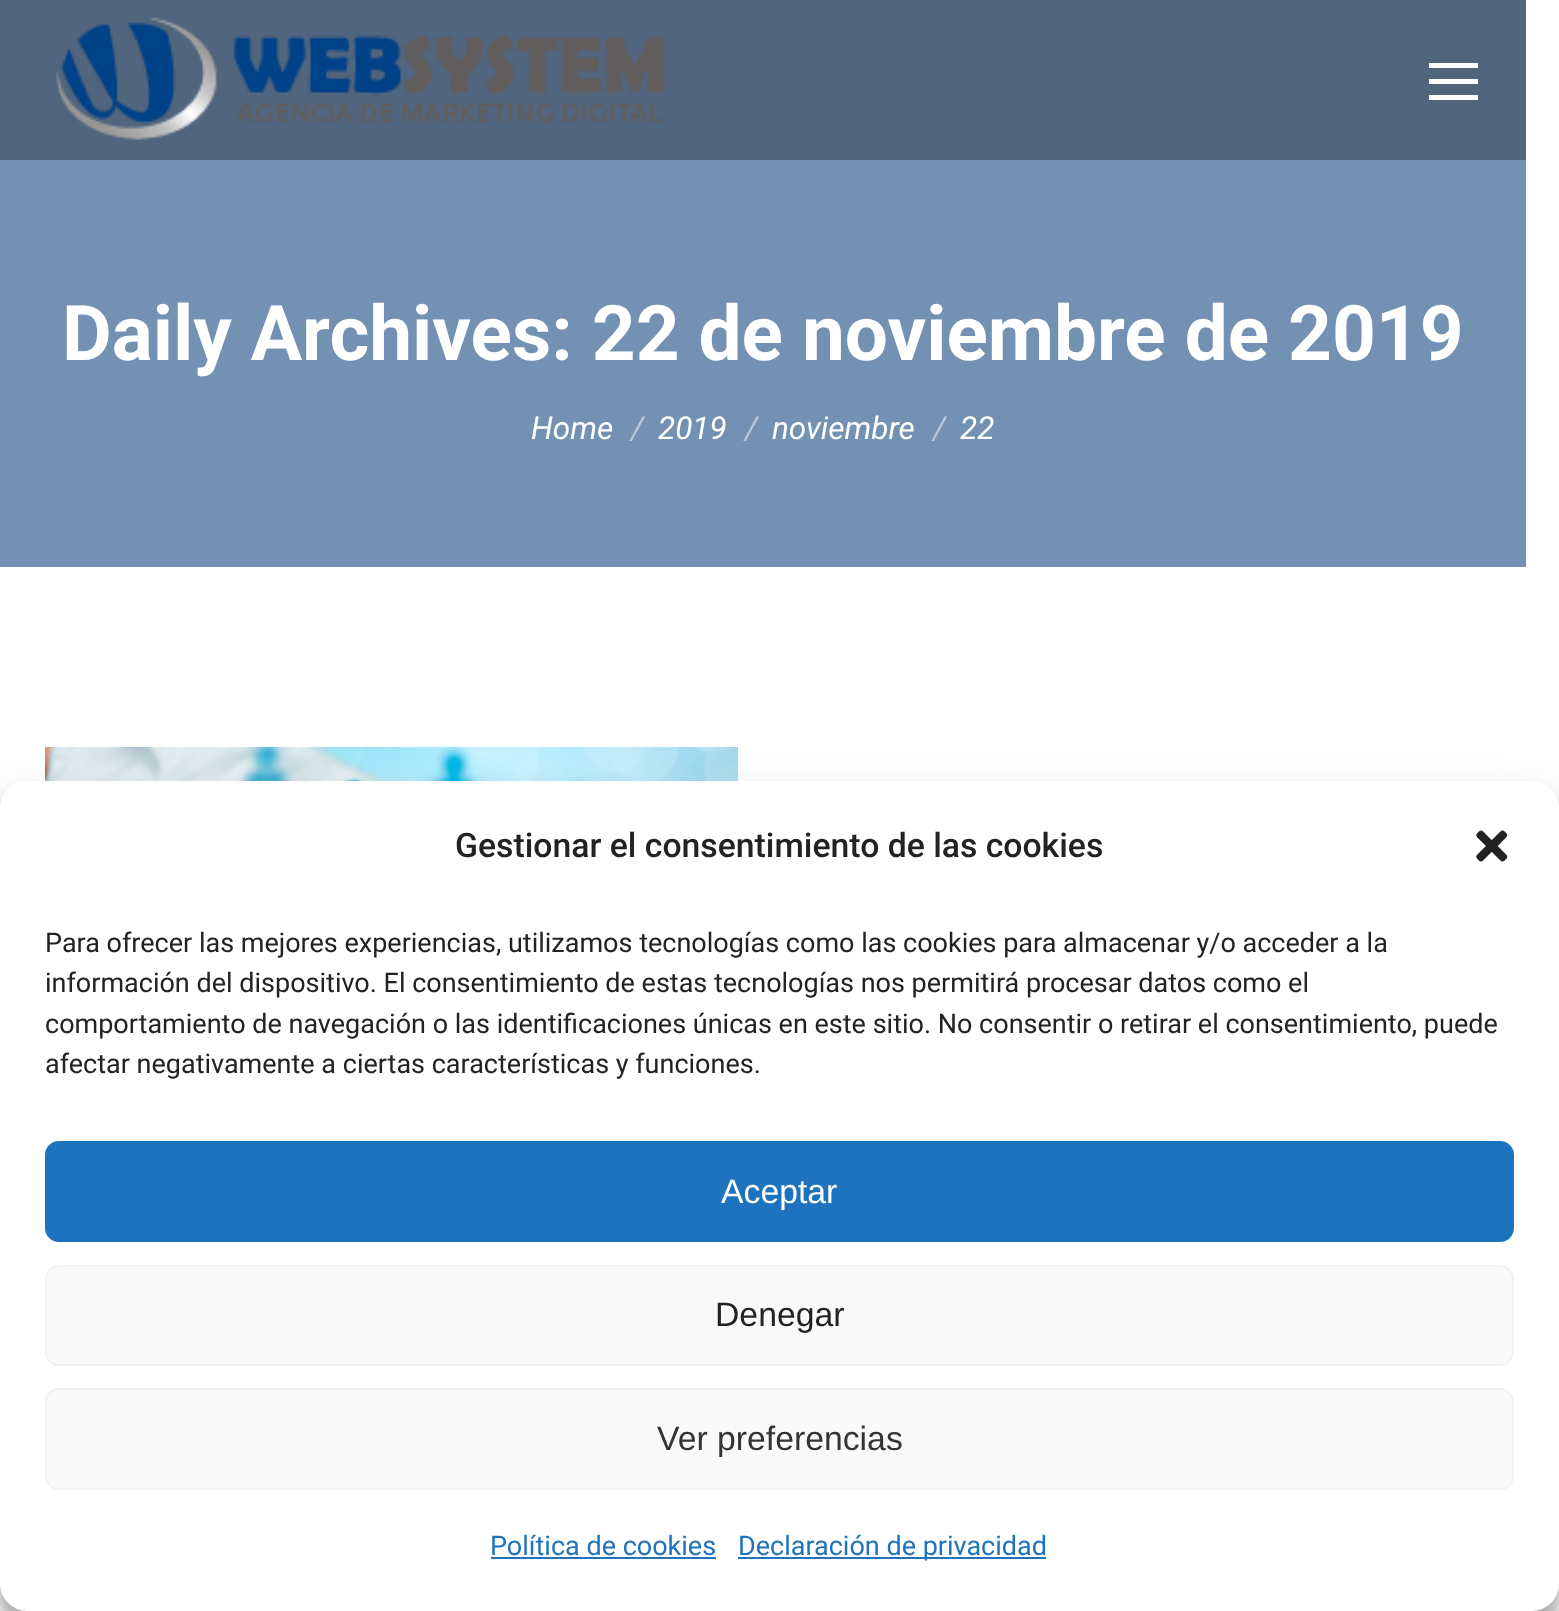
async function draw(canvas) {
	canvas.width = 1559;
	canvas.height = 1611;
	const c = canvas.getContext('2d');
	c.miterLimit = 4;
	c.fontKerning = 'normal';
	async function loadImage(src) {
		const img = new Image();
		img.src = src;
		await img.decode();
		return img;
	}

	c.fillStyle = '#fff';
	c.fillRect(0, 0, 1559, 1611);
	c.fillStyle = '#51657e';
	c.fillRect(0, 0, 1526, 160);
	c.drawImage(await loadImage('img1.png'), 55, 17, 610, 123);
	for (const [x, y, w, h, color] of [
		[1429, 63, 49, 5, '#fff'],
		[1429, 79, 49, 5, '#fff'],
		[1429, 95, 49, 5, '#fff'],
		[0, 160, 1526, 407, '#7391b3'],
	]) {
		c.fillStyle = color;
		c.fillRect(x, y, w, h);
	}
	c.font = 'bold 76.5px Roboto';
	c.fillStyle = '#fff';
	c.fillText('Daily Archives: 22 de noviembre de 2019', 62, 360);
	c.font = 'italic 31.5px Roboto';
	c.fillText('Home', 531, 439);
	c.fillStyle = '#b9c8d9';
	c.fillText('/', 631, 439);
	c.fillStyle = '#fff';
	c.fillText('2019', 658, 439);
	c.fillStyle = '#b9c8d9';
	c.fillText('/', 745, 439);
	c.fillStyle = '#fff';
	c.fillText('noviembre', 772, 439);
	c.fillStyle = '#b9c8d9';
	c.fillText('/', 933, 439);
	c.fillStyle = '#fff';
	c.fillText('22', 960, 439);
	c.drawImage(await loadImage('img2.png'), 45, 747, 693, 34);
	c.fillStyle = '#0000003b';
	c.filter = 'blur(7px)';
	c.beginPath();
	c.roundRect(0, 794, 1559, 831, 27);
	c.fill();
	c.filter = 'none';
	c.fillStyle = '#00000030';
	c.filter = 'blur(22.5px)';
	c.beginPath();
	c.roundRect(0, 803, 1559, 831, 27);
	c.fill();
	c.filter = 'none';
	c.fillStyle = '#808080';
	c.filter = 'blur(5.5px)';
	c.beginPath();
	c.roundRect(1402, 1445, 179, 135, 5);
	c.fill();
	c.filter = 'none';
	c.fillStyle = '#fff';
	c.beginPath();
	c.roundRect(0, 781, 1559, 830, 27);
	c.fill();
	c.font = '500 33.75px Roboto';
	c.fillStyle = '#222';
	c.fillText('Gestionar el consentimiento de las cookies', 455, 857);
	c.drawImage(await loadImage('img3.png'), 1476, 830, 32, 32);
	c.font = '27px Roboto';
	for (const [text, x, y] of [
		['Para ofrecer las mejores experiencias, utilizamos tecnologías como las cookies para almacenar y/o acceder a la', 45, 952],
		['información del dispositivo. El consentimiento de estas tecnologías nos permitirá procesar datos como el', 45, 992],
		['comportamiento de navegación o las identificaciones únicas en este sitio. No consentir o retirar el consentimiento, puede', 45, 1033],
		['afectar negativamente a ciertas características y funciones.', 45, 1073],
	]) {
		c.fillText(text, x, y);
	}
	c.fillStyle = '#1e73be';
	c.beginPath();
	c.roundRect(46, 1142, 1467, 99, 13);
	c.fill();
	c.strokeStyle = '#1e73be';
	c.lineWidth = 2;
	c.stroke();
	c.font = '33.75px Liberation Sans';
	c.fillStyle = '#fff';
	c.fillText('Aceptar', 721, 1203);
	c.fillStyle = '#f9f9f9';
	c.beginPath();
	c.roundRect(46, 1266, 1467, 99, 13);
	c.fill();
	c.strokeStyle = '#f2f2f2';
	c.stroke();
	c.fillStyle = '#222';
	c.fillText('Denegar', 715, 1326);
	c.fillStyle = '#f9f9f9';
	c.beginPath();
	c.roundRect(46, 1389, 1467, 100, 13);
	c.fill();
	c.stroke();
	c.fillStyle = '#333';
	c.fillText('Ver preferencias', 657, 1450);
	c.font = '27px Roboto';
	c.fillStyle = '#1e73be';
	c.fillText('Política de cookies', 490, 1555);
	c.fillRect(491, 1557, 225, 2);
	c.fillRect(738, 1557, 308, 2);
	c.fillText('Declaración de privacidad', 738, 1555);
}

draw(document.querySelector('canvas'));
